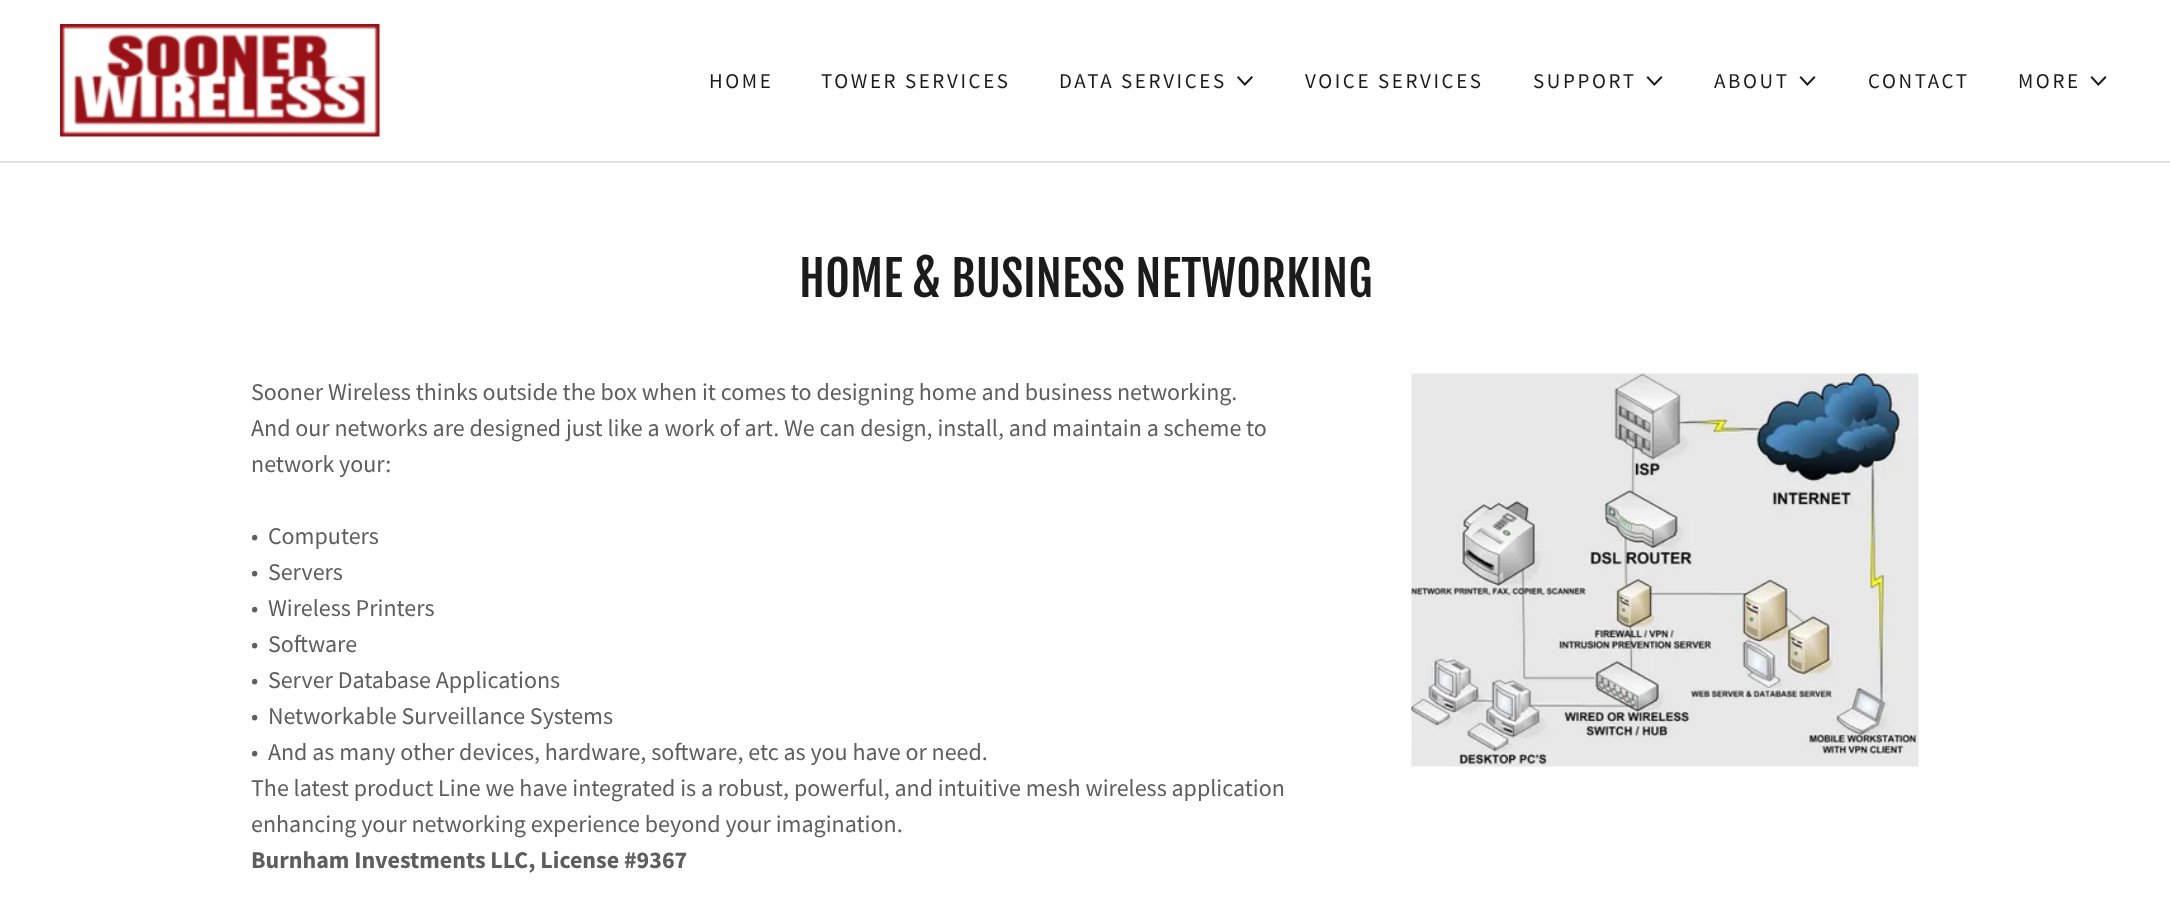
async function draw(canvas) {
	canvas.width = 2170;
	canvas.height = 920;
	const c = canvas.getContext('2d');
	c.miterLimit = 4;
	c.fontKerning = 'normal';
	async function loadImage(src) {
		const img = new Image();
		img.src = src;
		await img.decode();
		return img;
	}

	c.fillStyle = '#fefefe';
	c.fillRect(0, 0, 2170, 920);
	c.drawImage(await loadImage('img1.png'), 60, 24, 320, 113);
	c.letterSpacing = '2.6px';
	c.font = '21px Source Sans Pro';
	c.fillStyle = '#1b1b1b';
	for (const [text, x, y] of [
		['HOME', 709, 88],
		['TOWER SERVICES', 821, 88],
		['DATA SERVICES', 1059, 88],
	]) {
		c.fillText(text, x, y);
	}
	c.drawImage(await loadImage('img2.png'), 1237, 76, 16, 10);
	c.fillText('VOICE SERVICES', 1305, 88);
	c.fillText('SUPPORT', 1533, 88);
	c.drawImage(await loadImage('img3.png'), 1646, 76, 17, 10);
	c.fillText('ABOUT', 1714, 88);
	c.drawImage(await loadImage('img3.png'), 1799, 76, 17, 10);
	c.fillText('CONTACT', 1868, 88);
	c.fillText('MORE', 2018, 88);
	c.drawImage(await loadImage('img3.png'), 2090, 76, 17, 10);
	c.fillStyle = '#e2e2e2';
	c.fillRect(0, 161, 2170, 2);
	c.letterSpacing = '0px';
	c.font = '48px Fjalla One';
	c.fillStyle = '#1b1b1b';
	c.fillText('HOME & BUSINESS NETWORKING', 799, 297);
	c.font = '24px Source Sans Pro';
	c.fillStyle = '#5e5e5e';
	for (const [text, x, y] of [
		['Sooner Wireless thinks outside the box when it comes to designing home and business networking.', 251, 400],
		['And our networks are designed just like a work of art. We can design, install, and maintain a scheme to', 251, 436],
		['network your:', 251, 472],
		['•  Computers', 251, 544],
		['•  Servers', 251, 580],
		['•  Wireless Printers', 251, 616],
		['•  Software', 251, 652],
		['•  Server Database Applications', 251, 688],
		['•  Networkable Surveillance Systems', 251, 724],
		['•  And as many other devices, hardware, software, etc as you have or need.', 251, 760],
		['The latest product Line we have integrated is a robust, powerful, and intuitive mesh wireless application', 251, 796],
		['enhancing your networking experience beyond your imagination.', 251, 832],
	]) {
		c.fillText(text, x, y);
	}
	c.font = 'bold 24px Source Sans Pro';
	c.fillText('Burnham Investments LLC, License #9367', 251, 868);
	c.drawImage(await loadImage('img4.png'), 1411, 373, 508, 394);
}

draw(document.querySelector('canvas'));
